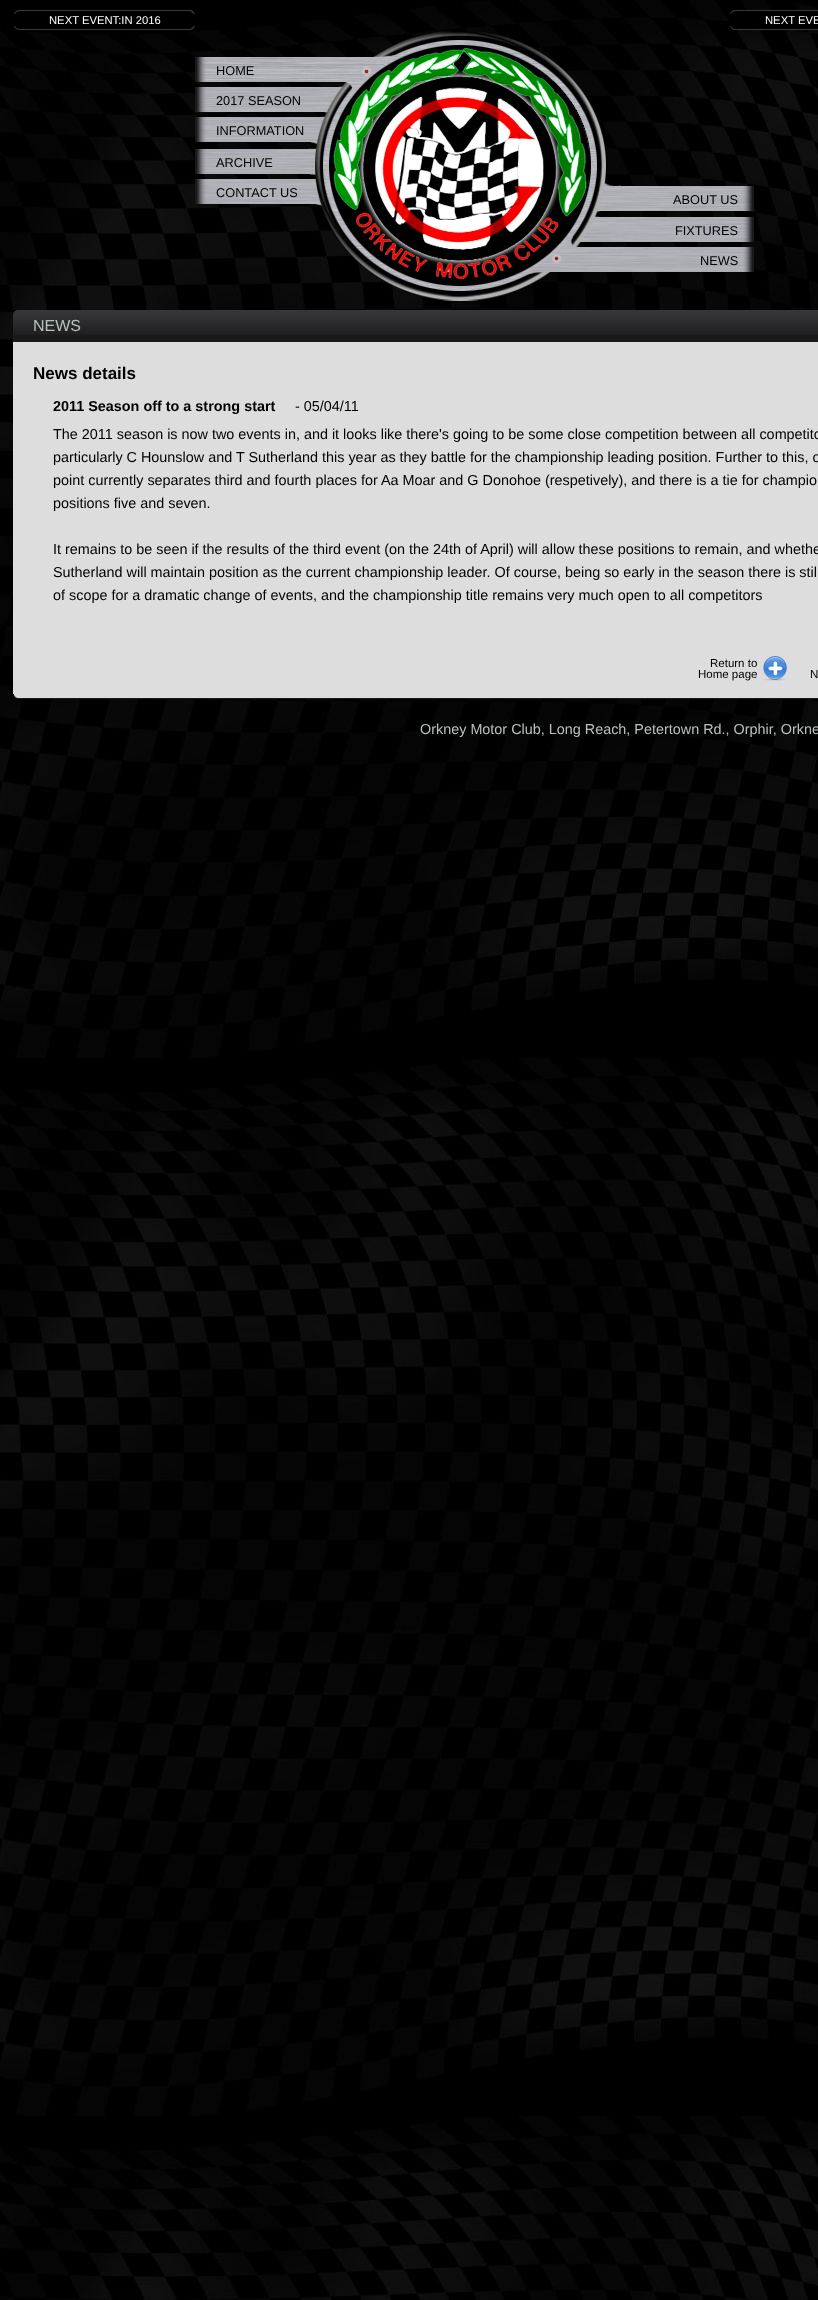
async function draw(canvas) {
	canvas.width = 818;
	canvas.height = 2300;
	const c = canvas.getContext('2d');
	c.miterLimit = 4;
	c.fontKerning = 'normal';
	async function loadImage(src) {
		const img = new Image();
		img.src = src;
		await img.decode();
		return img;
	}

	c.fillStyle = '#fff';
	c.fillRect(0, 0, 818, 2300);
	c.drawImage(await loadImage('img1.png'), 0, 0, 818, 2300);
	c.drawImage(await loadImage('img2.png'), 14, 10, 181, 4);
	c.font = '11.25px Liberation Sans';
	c.fillText('NEXT EVENT:IN 2016', 49, 24);
	c.drawImage(await loadImage('img3.png'), 14, 26, 181, 4);
	c.drawImage(await loadImage('img4.png'), 730, 10, 88, 4);
	c.fillStyle = '#000';
	c.fillRect(730, 14, 88, 12);
	c.fillStyle = '#fff';
	c.fillText('NEXT EVE', 765, 24);
	c.drawImage(await loadImage('img5.png'), 730, 26, 88, 4);
	c.drawImage(await loadImage('img6.png'), 195, 31, 267, 270);
	c.font = '12.75px Liberation Sans';
	c.fillStyle = '#000';
	for (const [text, x, y] of [
		['HOME', 216, 75],
		['2017 SEASON', 216, 105],
		['INFORMATION', 216, 135],
		['ARCHIVE', 216, 167],
		['CONTACT US', 216, 197],
	]) {
		c.fillText(text, x, y);
	}
	c.drawImage(await loadImage('img8.png'), 462, 31, 292, 270);
	c.drawImage(await loadImage('img7.png'), 333, 48, 256, 231);
	for (const [text, x, y] of [
		['ABOUT US', 673, 204],
		['FIXTURES', 675, 235],
		['NEWS', 700, 265],
	]) {
		c.fillText(text, x, y);
	}
	c.fillStyle = '#1a1a1c';
	c.fillRect(13, 335, 805, 7);
	c.drawImage(await loadImage('img9.png'), 13, 310, 805, 25);
	c.font = '16px Liberation Sans';
	c.fillStyle = '#b9c1be';
	c.fillText('NEWS', 33, 331);
	c.fillStyle = '#ddd';
	c.fillRect(13, 342, 805, 352);
	c.font = 'bold 17px Liberation Sans';
	c.fillStyle = '#000';
	c.fillText('News details', 33, 379);
	c.font = 'bold 14.4px Liberation Sans';
	c.fillText('2011 Season off to a strong start', 53, 411);
	c.font = '14.4px Liberation Sans';
	for (const [text, x, y] of [
		['- 05/04/11', 295, 411],
		['The 2011 season is now two events in, and it looks like there\'s going to be some close competition between all competito', 53, 439],
		['particularly C Hounslow and T Sutherland this year as they battle for the championship leading position. Further to this, o', 53, 462],
		['point currently separates third and fourth places for Aa Moar and G Donohoe (respetively), and there is a tie for champio', 53, 485],
		['positions five and seven.', 53, 508],
		['It remains to be seen if the results of the third event (on the 24th of April) will allow these positions to remain, and whethe', 53, 554],
		['Sutherland will maintain position as the current championship leader. Of course, being so early in the season there is stil', 53, 577],
		['of scope for a dramatic change of events, and the championship title remains very much open to all competitors', 53, 600],
	]) {
		c.fillText(text, x, y);
	}
	c.drawImage(await loadImage('img10.png'), 763, 656, 24, 25);
	c.font = '11.5px Liberation Sans';
	for (const [text, x, y] of [
		['Return to', 710, 667],
		['Home page', 698, 678],
		['N', 810, 678],
	]) {
		c.fillText(text, x, y);
	}
	c.drawImage(await loadImage('img11.png'), 13, 694, 805, 5);
	c.font = '14.4px Liberation Sans';
	c.fillStyle = '#b9c1be';
	c.fillText('Orkney Motor Club, Long Reach, Petertown Rd., Orphir, Orkne', 420, 734);
}

draw(document.querySelector('canvas'));
